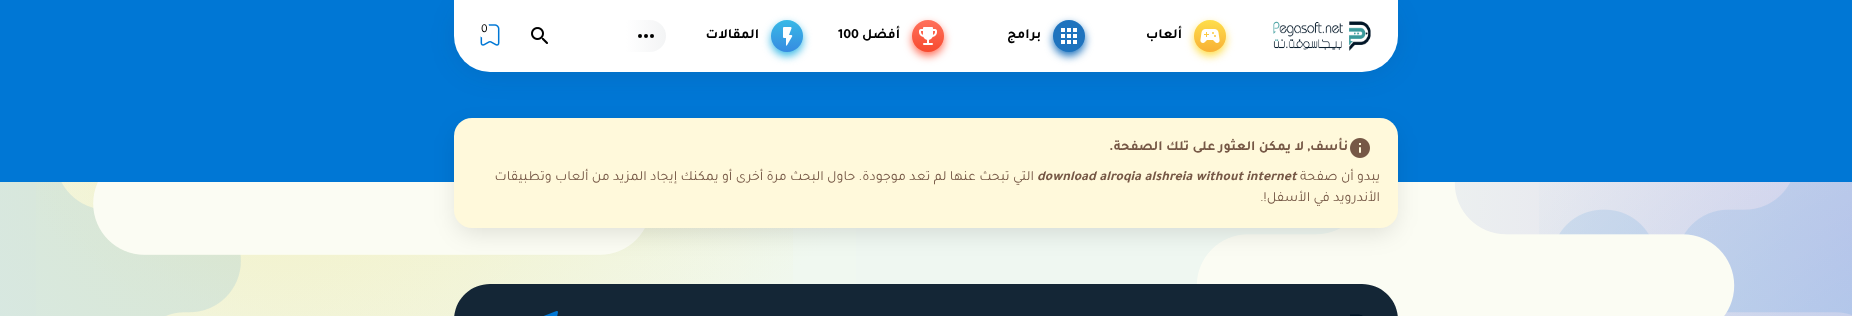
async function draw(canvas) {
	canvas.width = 1852;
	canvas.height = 316;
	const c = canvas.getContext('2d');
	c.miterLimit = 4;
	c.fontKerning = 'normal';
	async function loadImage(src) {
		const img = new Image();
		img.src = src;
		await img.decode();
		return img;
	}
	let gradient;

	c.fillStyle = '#eff7f1';
	c.fillRect(0, 0, 1852, 316);
	c.fillStyle = '#0077d5';
	c.fillRect(0, 0, 1852, 182);
	c.fillStyle = '#172b3d33';
	c.filter = 'blur(16px)';
	c.beginPath();
	c.roundRect(462, 10, 928, 56, 28);
	c.fill();
	c.filter = 'none';
	c.fillStyle = '#fff';
	c.beginPath();
	c.roundRect(454, 0, 944, 72, [0, 0, 36, 36]);
	c.fill();
	c.drawImage(await loadImage('img1.png'), 1273, 21, 98, 30);
	c.fillStyle = '#fede4a';
	c.filter = 'blur(4px)';
	c.beginPath();
	c.roundRect(1194, 24, 32, 32, 16);
	c.fill();
	c.filter = 'none';
	gradient = c.createLinearGradient(1210, 20, 1210, 52);
	gradient.addColorStop(0, '#fede4a');
	gradient.addColorStop(1, '#f8b035');
	c.fillStyle = gradient;
	c.beginPath();
	c.arc(1210, 36, 16, 0, 2 * Math.PI);
	c.fill();
	c.drawImage(await loadImage('img2.png'), 1200, 29, 20, 14);
	c.direction = 'rtl';
	c.font = 'bold 14px Tajawal';
	c.fillStyle = '#000';
	c.fillText('ألعاب', 1182, 38);
	c.fillStyle = '#1e73be';
	c.filter = 'blur(4px)';
	c.beginPath();
	c.roundRect(1053, 24, 32, 32, 16);
	c.fill();
	c.filter = 'none';
	c.beginPath();
	c.arc(1069, 36, 16, 0, 2 * Math.PI);
	c.fill();
	c.drawImage(await loadImage('img3.png'), 1061, 28, 16, 16);
	c.fillStyle = '#000';
	c.fillText('برامج', 1041, 38);
	c.fillStyle = '#ff715c';
	c.filter = 'blur(4px)';
	c.beginPath();
	c.roundRect(912, 24, 32, 32, 16);
	c.fill();
	c.filter = 'none';
	gradient = c.createLinearGradient(928, 20, 928, 52);
	gradient.addColorStop(0, '#ff715c');
	gradient.addColorStop(1, '#f74a2f');
	c.fillStyle = gradient;
	c.beginPath();
	c.arc(928, 36, 16, 0, 2 * Math.PI);
	c.fill();
	c.drawImage(await loadImage('img4.png'), 919, 27, 18, 18);
	c.fillStyle = '#000';
	c.fillText('أفضل', 900, 38);
	c.direction = 'ltr';
	c.fillText('100', 838, 38);
	c.fillStyle = '#38b9e6';
	c.filter = 'blur(4px)';
	c.beginPath();
	c.roundRect(771, 24, 32, 32, 16);
	c.fill();
	c.filter = 'none';
	gradient = c.createLinearGradient(787, 20, 787, 52);
	gradient.addColorStop(0, '#38b9e6');
	gradient.addColorStop(1, '#368be1');
	c.fillStyle = gradient;
	c.beginPath();
	c.arc(787, 36, 16, 0, 2 * Math.PI);
	c.fill();
	c.drawImage(await loadImage('img5.png'), 783, 27, 10, 19);
	c.direction = 'rtl';
	c.fillStyle = '#000';
	c.fillText('المقالات', 759, 38);
	gradient = c.createLinearGradient(626, 36, 666, 36);
	gradient.addColorStop(0, '#fff');
	gradient.addColorStop(1, '#f3f4f5');
	c.fillStyle = gradient;
	c.beginPath();
	c.roundRect(626, 20, 40, 32, [0, 16, 16, 0]);
	c.fill();
	c.fillStyle = '#000';
	c.beginPath();
	c.arc(652, 36, 2, 0, 2 * Math.PI);
	c.fill();
	c.beginPath();
	c.arc(646, 36, 2, 0, 2 * Math.PI);
	c.fill();
	c.beginPath();
	c.arc(640, 36, 2, 0, 2 * Math.PI);
	c.fill();
	c.drawImage(await loadImage('img6.png'), 531, 27, 17, 17);
	c.drawImage(await loadImage('img7.png'), 480, 24, 20, 22);
	c.fillStyle = '#fff';
	c.beginPath();
	c.roundRect(479, 21, 10, 17, 5);
	c.fill();
	c.direction = 'ltr';
	c.font = '12px Tajawal';
	c.fillStyle = '#000';
	c.fillText('0', 481, 32);
	gradient = c.createRadialGradient(446, -218, 0, 446, -218, 600);
	gradient.addColorStop(0, '#f3f3cf');
	gradient.addColorStop(1, '#f0f8f0');
	c.fillStyle = gradient;
	c.fillRect(36, 182, 820, 134);
	gradient = c.createRadialGradient(266, 133, 0, 266, 133, 600);
	gradient.addColorStop(0, '#fede4a33');
	gradient.addColorStop(1, '#fede4a00');
	c.fillStyle = gradient;
	c.fillRect(0, 182, 793, 134);
	gradient = c.createRadialGradient(1896, 225, 0, 1896, 225, 600);
	gradient.addColorStop(0, '#dfd7ef');
	gradient.addColorStop(1, '#f0f8f0');
	c.fillStyle = gradient;
	c.fillRect(1359, 182, 493, 134);
	gradient = c.createRadialGradient(1989, 525, 0, 1989, 525, 600);
	gradient.addColorStop(0, '#0077d533');
	gradient.addColorStop(1, '#0077d500');
	c.fillStyle = gradient;
	c.fillRect(1539, 182, 313, 134);
	c.drawImage(await loadImage('img9.png'), 0, 182, 1852, 134);
	c.fillStyle = '#0000001f';
	c.filter = 'blur(12px)';
	c.beginPath();
	c.roundRect(458, 130, 936, 102, 14);
	c.fill();
	c.filter = 'none';
	c.fillStyle = '#fff9db';
	c.beginPath();
	c.roundRect(454, 118, 944, 110, 18);
	c.fill();
	c.drawImage(await loadImage('img8.png'), 1350, 138, 20, 20);
	c.direction = 'rtl';
	c.font = 'bold 14px Tajawal';
	c.fillStyle = '#765846';
	c.fillText('نأسف, لا يمكن العثور على تلك الصفحة.', 1348, 150);
	c.font = '14px Tajawal';
	c.fillText('يبدو أن صفحة', 1380, 180);
	c.direction = 'ltr';
	c.font = 'italic bold 14px Tajawal';
	c.fillText('download alroqia alshreia without internet', 1037, 180);
	c.direction = 'rtl';
	c.font = '14px Tajawal';
	c.fillText('التي تبحث عنها لم تعد موجودة. حاول البحث مرة أخرى أو يمكنك إيجاد المزيد من ألعاب وتطبيقات', 1034, 180);
	c.fillText('الأندرويد في الأسفل!.', 1380, 201);
	c.fillStyle = '#142636';
	c.beginPath();
	c.moveTo(490, 284);
	c.lineTo(1362, 284);
	c.bezierCurveTo(1382, 284, 1398, 300, 1398, 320);
	c.lineTo(1398, 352);
	c.lineTo(454, 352);
	c.lineTo(454, 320);
	c.bezierCurveTo(454, 300, 470, 284, 490, 284);
	c.closePath();
	c.fill();
	c.drawImage(await loadImage('img10.png'), 1350, 314, 13, 2);
	c.drawImage(await loadImage('img11.png'), 543, 311, 15, 5);
}

draw(document.querySelector('canvas'));
